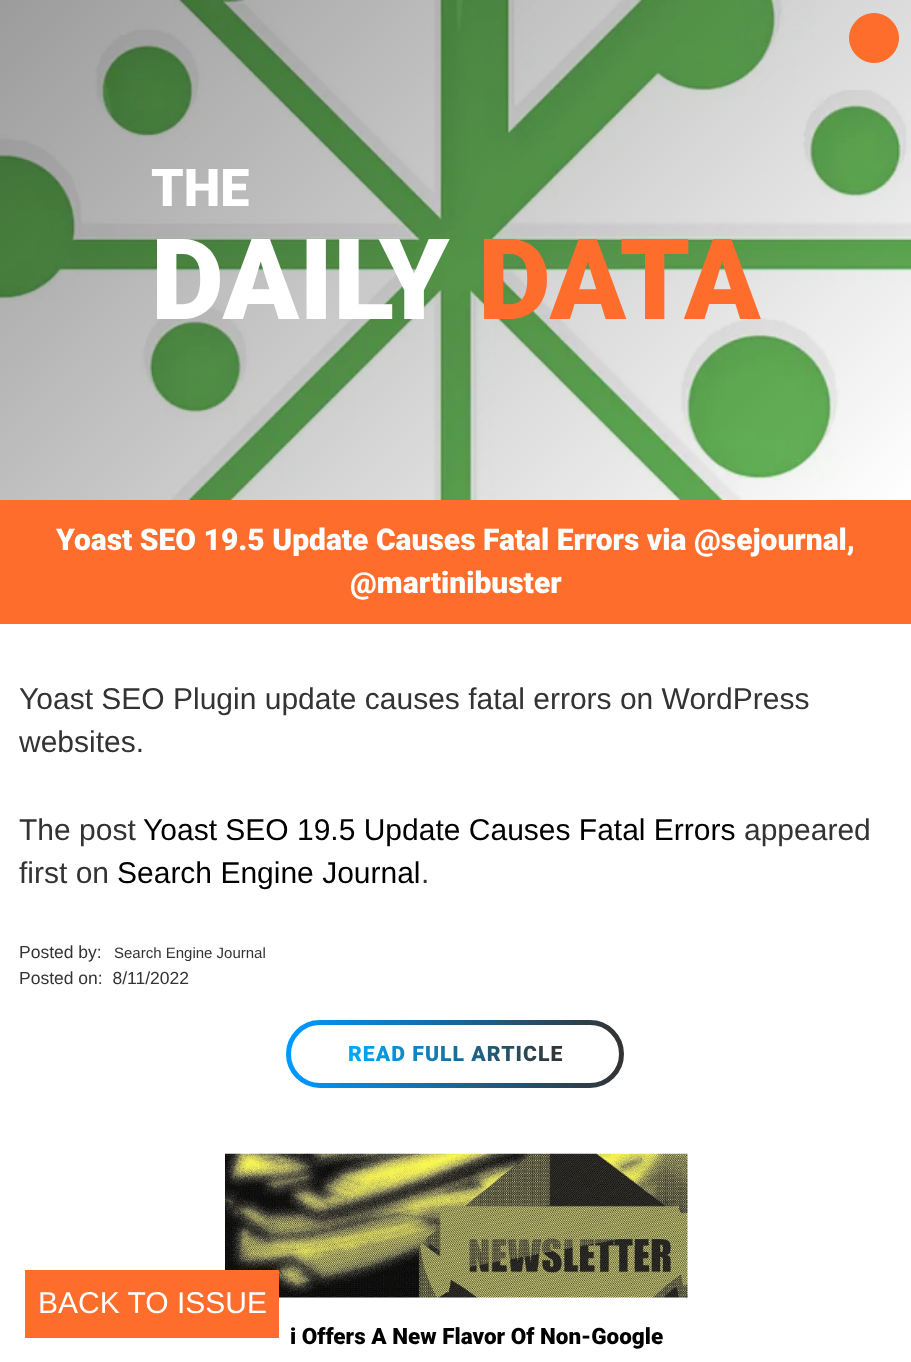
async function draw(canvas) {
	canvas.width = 911;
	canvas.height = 1362;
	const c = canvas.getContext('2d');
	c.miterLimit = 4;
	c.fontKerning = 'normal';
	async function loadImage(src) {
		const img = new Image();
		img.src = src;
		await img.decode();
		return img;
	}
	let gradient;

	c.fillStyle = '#fff';
	c.fillRect(0, 0, 911, 1362);
	c.drawImage(await loadImage('img1.png'), 0, 0, 911, 500);
	c.fillStyle = '#fe6d2c';
	c.beginPath();
	c.arc(874, 38, 24.5, 0, 2 * Math.PI);
	c.fill();
	c.strokeStyle = '#fe6d2c';
	c.stroke();
	c.font = '900 52px Roboto';
	c.fillStyle = '#fff';
	c.fillText('THE', 151, 206);
	c.font = '900 112.5px Roboto';
	c.fillText('DAILY', 151, 319);
	c.fillStyle = '#fe6d2c';
	c.fillText('DATA', 478, 319);
	c.fillRect(0, 500, 911, 124);
	c.font = '900 30px Roboto';
	c.fillStyle = '#fff';
	c.fillText('Yoast SEO 19.5 Update Causes Fatal Errors via @sejournal,', 56, 550);
	c.fillText('@martinibuster', 350, 593);
	c.font = '30px Liberation Sans';
	c.fillStyle = '#333';
	for (const [text, x, y] of [
		['Yoast SEO Plugin update causes fatal errors on WordPress', 19, 709],
		['websites.', 19, 752],
		['The post', 19, 840],
	]) {
		c.fillText(text, x, y);
	}
	c.fillStyle = '#000';
	c.fillText('Yoast SEO 19.5 Update Causes Fatal Errors', 143, 840);
	c.fillStyle = '#333';
	c.fillText('appeared', 744, 840);
	c.fillText('first on', 19, 883);
	c.fillStyle = '#000';
	c.fillText('Search Engine Journal', 117, 883);
	c.fillStyle = '#333';
	c.fillText('.', 421, 883);
	c.font = '17.5px Liberation Sans';
	c.fillText('Posted by:', 19, 958);
	c.font = '15px Liberation Sans';
	c.fillText('Search Engine Journal', 114, 958);
	c.font = '17.5px Liberation Sans';
	c.fillText('Posted on:  8/11/2022', 19, 984);
	c.beginPath();
	c.roundRect(288.5, 1022.5, 333, 63, 31.5);
	gradient = c.createLinearGradient(289, 1023, 621, 1023);
	gradient.addColorStop(0, '#09f');
	gradient.addColorStop(1, '#333');
	c.strokeStyle = gradient;
	c.lineWidth = 5;
	c.stroke();
	c.letterSpacing = '1px';
	c.font = '900 21.25px Roboto';
	gradient = c.createLinearGradient(348, 1054, 563, 1054);
	gradient.addColorStop(0, '#0af');
	gradient.addColorStop(1, '#333');
	c.fillStyle = gradient;
	c.fillText('READ FULL ARTICLE', 348, 1061);
	c.drawImage(await loadImage('img2.png'), 225, 1153, 463, 145);
	c.fillStyle = '#fe6d2c';
	c.fillRect(25, 1270, 254, 68);
	c.letterSpacing = '0px';
	c.font = '30px Liberation Sans';
	c.fillStyle = '#fff';
	c.fillText('BACK TO ISSUE', 38, 1313);
	c.font = '900 22.5px Roboto';
	c.fillStyle = '#000';
	c.fillText('i Offers A New Flavor Of Non-Google', 290, 1344);
}

draw(document.querySelector('canvas'));
